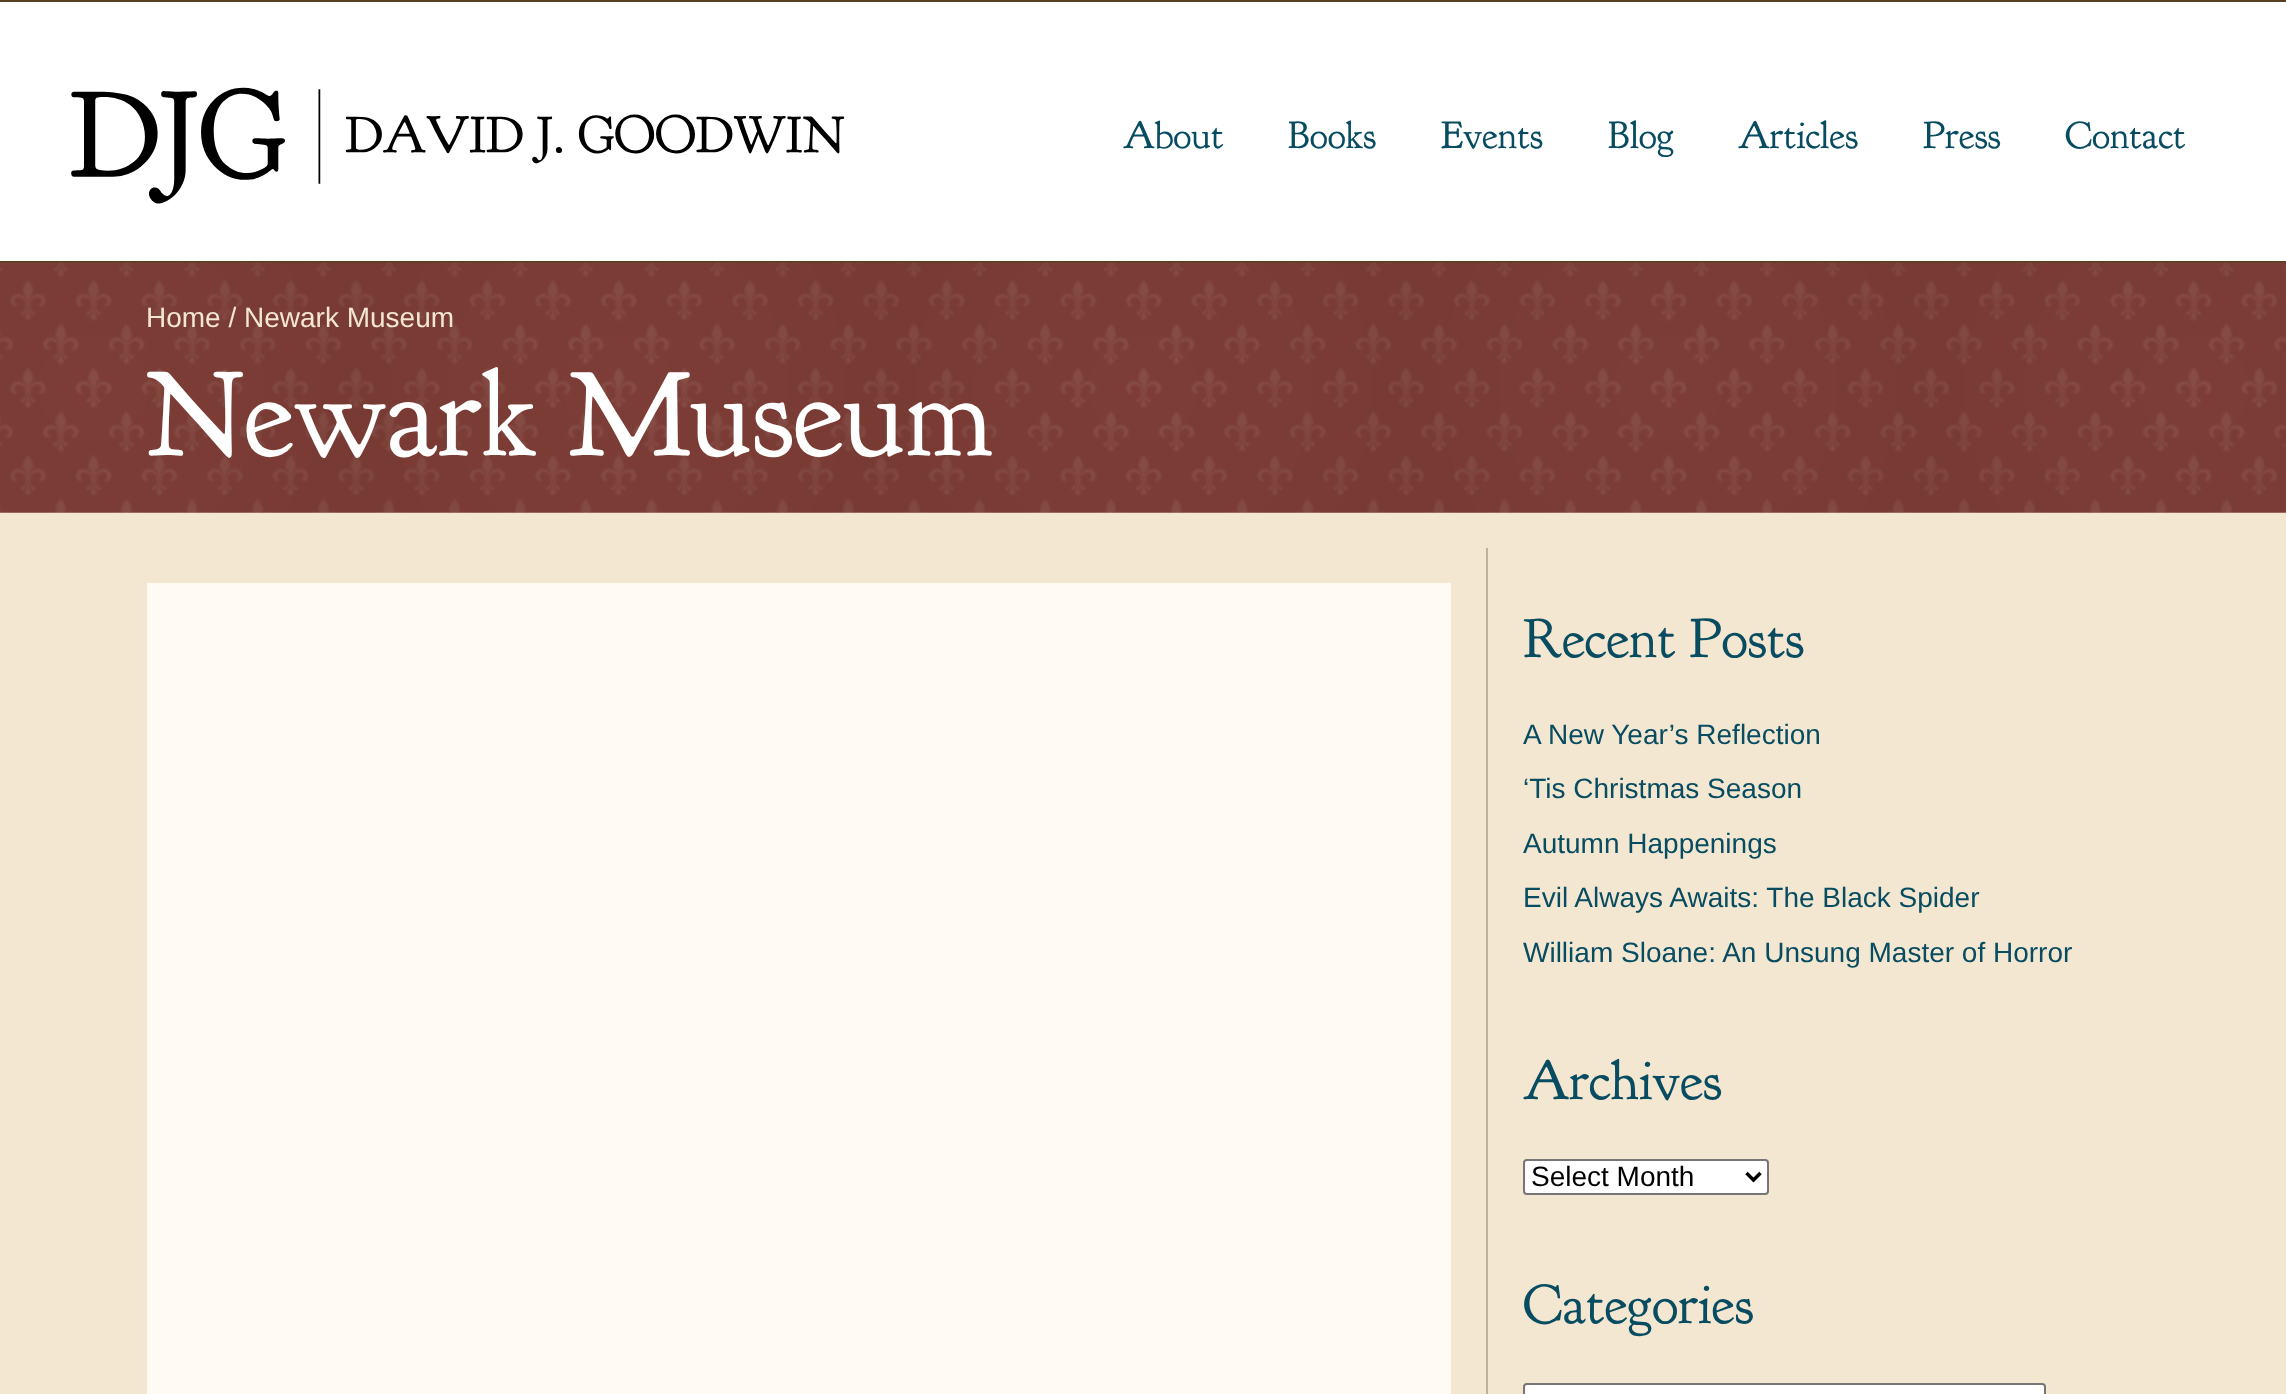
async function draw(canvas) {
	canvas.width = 2286;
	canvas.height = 1394;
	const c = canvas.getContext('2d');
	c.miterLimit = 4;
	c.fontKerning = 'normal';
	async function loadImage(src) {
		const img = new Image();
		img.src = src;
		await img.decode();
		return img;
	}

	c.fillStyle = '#f3e7d1';
	c.fillRect(0, 0, 2286, 1394);
	for (const [x, y, w, h, color] of [
		[0, 2, 2286, 259, '#fff'],
		[0, 0, 2286, 2, '#583f23'],
		[0, 261, 2286, 2, '#583f23'],
	]) {
		c.fillStyle = color;
		c.fillRect(x, y, w, h);
	}
	c.drawImage(await loadImage('img1.png'), 71, 87, 774, 117);
	c.font = '38.5px "Goudy Bookletter 1911"';
	c.fillStyle = '#084c61';
	for (const [text, x, y] of [
		['About', 1123, 148],
		['Books', 1288, 148],
		['Events', 1441, 148],
		['Blog', 1608, 148],
		['Articles', 1738, 148],
		['Press', 1923, 148],
		['Contact', 2065, 148],
	]) {
		c.fillText(text, x, y);
	}
	c.drawImage(await loadImage('img2.png'), 0, 262, 2286, 251);
	c.font = '28px Liberation Sans';
	c.fillStyle = '#f3e7d1';
	c.fillText('Home / Newark Museum', 146, 327);
	c.font = '122.5px "Goudy Bookletter 1911"';
	c.fillStyle = '#fff';
	c.fillText('Newark Museum', 146, 455);
	c.fillStyle = '#c1b199';
	c.fillRect(1486, 548, 2, 846);
	c.fillStyle = '#fffbf4';
	c.fillRect(147, 583, 1304, 811);
	c.font = '56px "Goudy Bookletter 1911"';
	c.fillStyle = '#084c61';
	c.fillText('Recent Posts', 1523, 657);
	c.font = '28px Liberation Sans';
	for (const [text, x, y] of [
		['A New Year’s Reflection', 1523, 744],
		['‘Tis Christmas Season', 1523, 798],
		['Autumn Happenings', 1523, 853],
		['Evil Always Awaits: The Black Spider', 1523, 907],
		['William Sloane: An Unsung Master of Horror', 1523, 962],
	]) {
		c.fillText(text, x, y);
	}
	c.font = '56px "Goudy Bookletter 1911"';
	c.fillText('Archives', 1523, 1099);
	c.fillStyle = '#fff';
	c.beginPath();
	c.roundRect(1524, 1160, 244, 34, 3);
	c.fill();
	c.strokeStyle = '#767676';
	c.lineWidth = 2;
	c.stroke();
	c.beginPath();
	c.moveTo(1746.5, 1173);
	c.lineTo(1753.5, 1180);
	c.lineTo(1760.5, 1173);
	c.strokeStyle = '#000';
	c.lineWidth = 3.5;
	c.stroke();
	c.font = '28px Liberation Sans';
	c.fillStyle = '#000';
	c.fillText('Select Month', 1531, 1186);
	c.font = '56px "Goudy Bookletter 1911"';
	c.fillStyle = '#084c61';
	c.fillText('Categories', 1523, 1323);
	c.fillStyle = '#fff';
	c.beginPath();
	c.roundRect(1524, 1384, 521, 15, 3);
	c.fill();
	c.strokeStyle = '#767676';
	c.lineWidth = 2;
	c.stroke();
}

draw(document.querySelector('canvas'));
